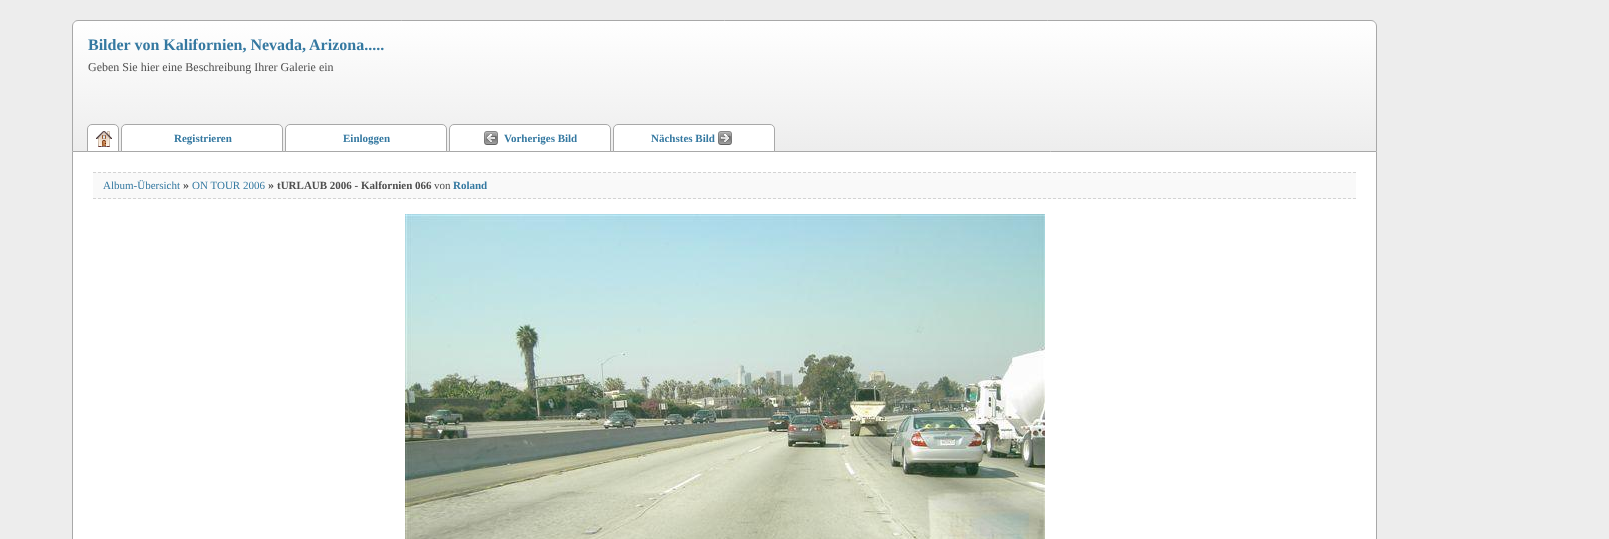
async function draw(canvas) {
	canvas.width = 1609;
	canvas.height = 539;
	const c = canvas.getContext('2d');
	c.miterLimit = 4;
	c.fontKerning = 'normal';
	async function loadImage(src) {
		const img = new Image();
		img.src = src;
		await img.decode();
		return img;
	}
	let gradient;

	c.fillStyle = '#ededed';
	c.fillRect(0, 0, 1609, 539);
	c.save();
	c.beginPath();
	c.roundRect(72, 20, 1305, 132, [6, 6, 0, 0]);
	c.clip();
	gradient = c.createLinearGradient(73, 21, 73, 151);
	gradient.addColorStop(0, '#fff');
	gradient.addColorStop(1, '#ededed');
	c.fillStyle = gradient;
	c.fillRect(72, 21, 1305, 130);
	c.restore();
	c.beginPath();
	c.roundRect(72.5, 20.5, 1304, 131, [5.5, 5.5, 0, 0]);
	c.strokeStyle = '#a8a8a8';
	c.stroke();
	c.font = 'bold 16px Liberation Serif';
	c.fillStyle = '#3579a1';
	c.fillText('Bilder von Kalifornien, Nevada, Arizona.....', 88, 50);
	c.font = '12px Liberation Serif';
	c.fillStyle = '#4e4e4e';
	c.fillText('Geben Sie hier eine Beschreibung Ihrer Galerie ein', 88, 71);
	c.fillStyle = '#fff';
	c.beginPath();
	c.roundRect(87.5, 124.5, 31, 27, [4.5, 4.5, 0, 0]);
	c.fill();
	c.stroke();
	c.drawImage(await loadImage('img1.png'), 96, 131, 16, 16);
	c.beginPath();
	c.roundRect(121.5, 124.5, 161, 27, [4.5, 4.5, 0, 0]);
	c.fill();
	c.stroke();
	c.font = 'bold 11px Liberation Serif';
	c.fillStyle = '#3579a1';
	c.fillText('Registrieren', 174, 142);
	c.fillStyle = '#fff';
	c.beginPath();
	c.roundRect(285.5, 124.5, 161, 27, [4.5, 4.5, 0, 0]);
	c.fill();
	c.stroke();
	c.fillStyle = '#3579a1';
	c.fillText('Einloggen', 343, 142);
	c.fillStyle = '#fff';
	c.beginPath();
	c.roundRect(449.5, 124.5, 161, 27, [4.5, 4.5, 0, 0]);
	c.fill();
	c.stroke();
	c.drawImage(await loadImage('img2.png'), 484, 131, 14, 14);
	c.fillStyle = '#3579a1';
	c.fillText('Vorheriges Bild', 504, 142);
	c.fillStyle = '#fff';
	c.beginPath();
	c.roundRect(613.5, 124.5, 161, 27, [4.5, 4.5, 0, 0]);
	c.fill();
	c.stroke();
	c.fillStyle = '#3579a1';
	c.fillText('Nächstes Bild', 651, 142);
	c.drawImage(await loadImage('img3.png'), 718, 131, 14, 14);
	for (const [x, y, w, h, color] of [
		[73, 152, 1303, 387, '#fff'],
		[1376, 152, 1, 387, '#a8a8a8'],
		[72, 152, 1, 387, '#a8a8a8'],
		[93, 172, 1263, 27, '#f9f9f9'],
	]) {
		c.fillStyle = color;
		c.fillRect(x, y, w, h);
	}
	c.beginPath();
	c.moveTo(93, 172.5);
	c.lineTo(1356, 172.5);
	c.strokeStyle = '#d3d3d3';
	c.setLineDash([3, 2]);
	c.stroke();
	c.beginPath();
	c.moveTo(93, 198.5);
	c.lineTo(1356, 198.5);
	c.stroke();
	c.font = '11px Liberation Serif';
	c.fillStyle = '#3579a1';
	c.fillText('Album-Übersicht', 103, 189);
	c.font = 'bold 12px Liberation Serif';
	c.fillStyle = '#4e4e4e';
	c.fillText('»', 183, 189);
	c.font = '11px Liberation Serif';
	c.fillStyle = '#3579a1';
	c.fillText('ON TOUR 2006', 192, 189);
	c.font = 'bold 12px Liberation Serif';
	c.fillStyle = '#4e4e4e';
	c.fillText('»', 268, 189);
	c.font = 'bold 11px Liberation Serif';
	c.fillText('tURLAUB 2006 - Kalfornien 066', 277, 189);
	c.font = '11px Liberation Serif';
	c.fillText('von', 434, 189);
	c.font = 'bold 11px Liberation Serif';
	c.fillStyle = '#3579a1';
	c.fillText('Roland', 453, 189);
	c.drawImage(await loadImage('img4.png'), 405, 214, 640, 325);
}

draw(document.querySelector('canvas'));
